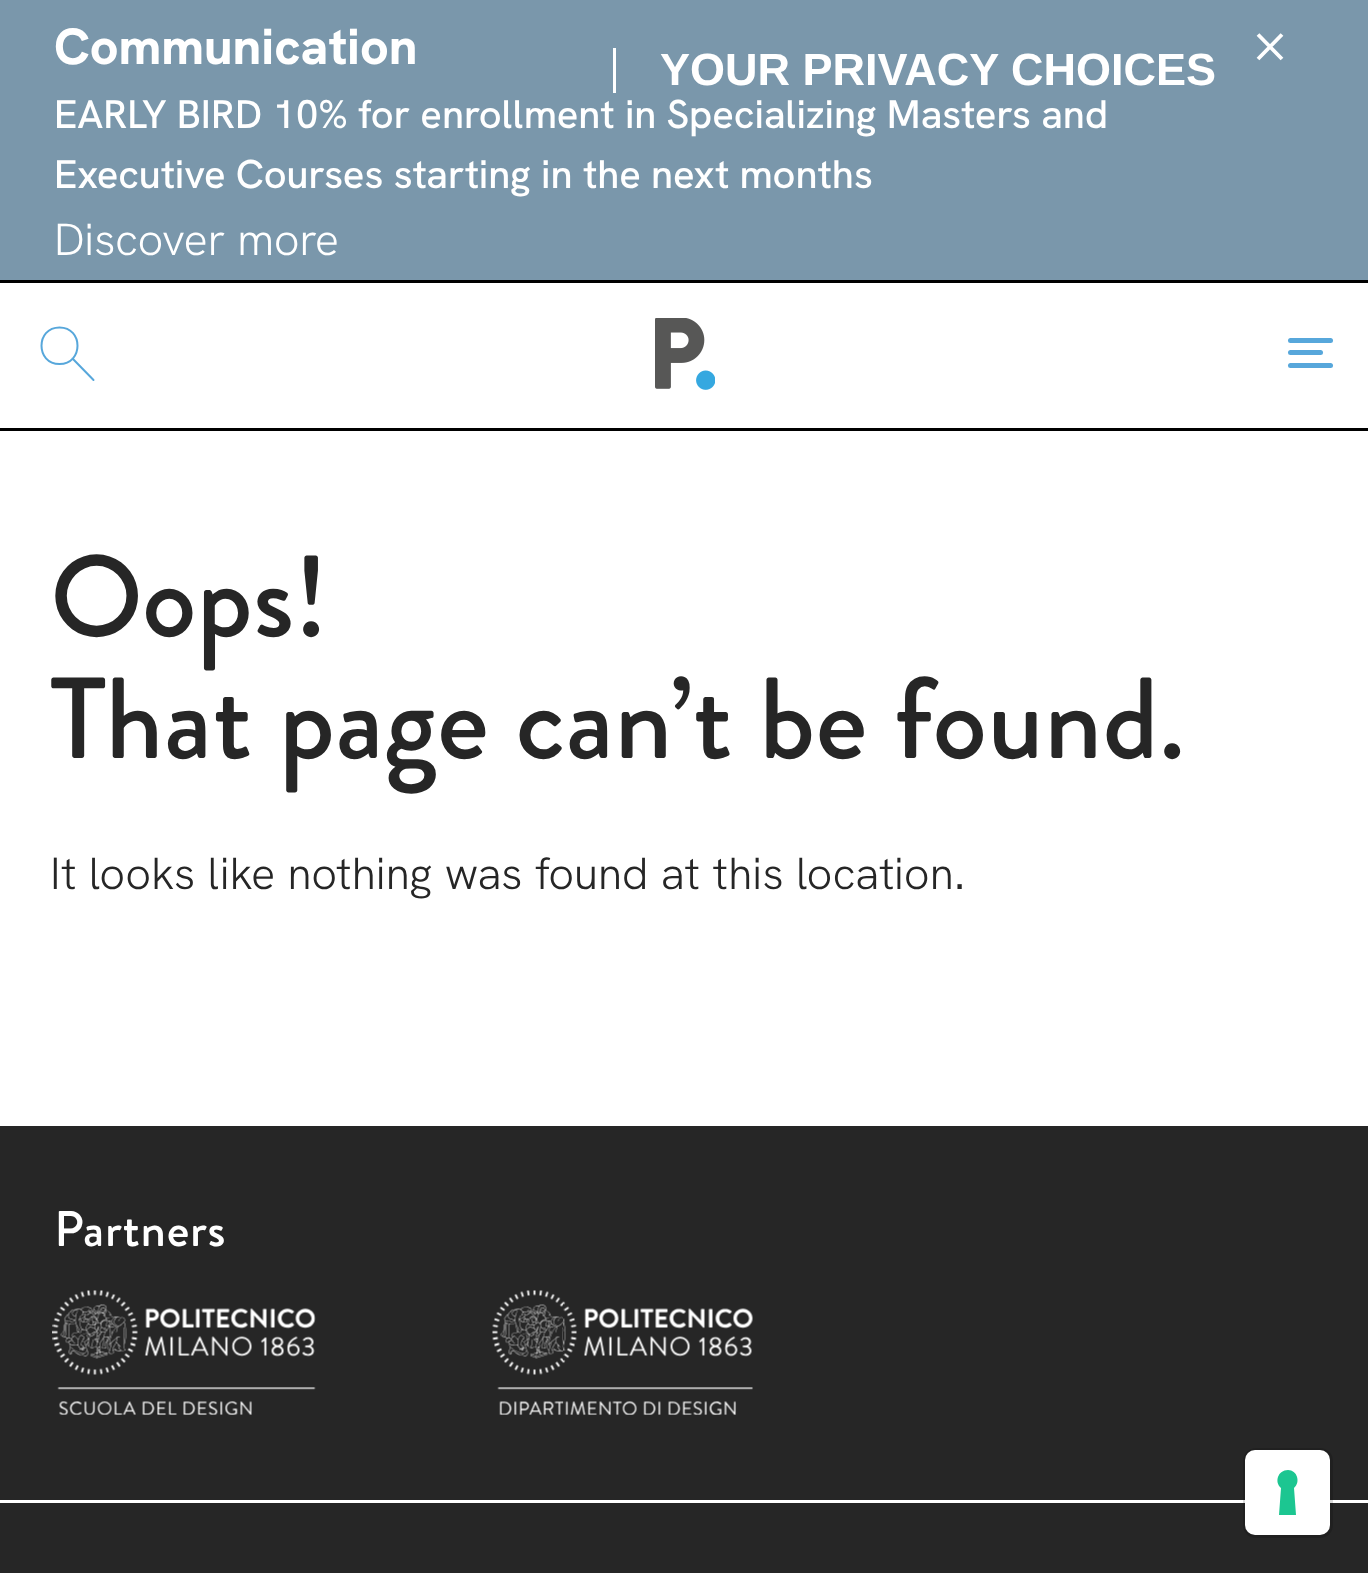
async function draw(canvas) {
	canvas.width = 1368;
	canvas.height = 1573;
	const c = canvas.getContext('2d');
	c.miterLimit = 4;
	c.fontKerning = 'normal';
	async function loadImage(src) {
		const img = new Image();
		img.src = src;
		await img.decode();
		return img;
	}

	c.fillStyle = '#fff';
	c.fillRect(0, 0, 1368, 1573);
	c.fillStyle = '#7a97ab';
	c.fillRect(0, 0, 1368, 280);
	c.font = '800 50.5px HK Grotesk';
	c.fillStyle = '#fff';
	c.fillText('Communication', 54, 64);
	c.font = '600 40px HK Grotesk';
	c.fillText('EARLY BIRD 10% for enrollment in Specializing Masters and', 54, 128);
	c.fillText('Executive Courses starting in the next months', 54, 188);
	c.font = '45px HK Grotesk';
	c.fillText('Discover more', 54, 255);
	c.beginPath();
	c.moveTo(1258, 34.5);
	c.lineTo(1282, 59);
	c.moveTo(1258, 59);
	c.lineTo(1282, 34.5);
	c.strokeStyle = '#fff';
	c.lineWidth = 3.8;
	c.stroke();
	c.fillStyle = '#000';
	c.fillRect(0, 280, 1368, 3);
	c.fillRect(0, 428, 1368, 3);
	c.beginPath();
	c.moveTo(59.5, 364);
	c.bezierCurveTo(83.5, 364, 83.5, 327.5, 59.5, 327.5);
	c.bezierCurveTo(35.5, 327.5, 35.5, 364, 59.5, 364);
	c.closePath();
	c.moveTo(93.5, 380);
	c.lineTo(72.5, 358.5);
	c.strokeStyle = '#57a7db';
	c.lineWidth = 2;
	c.lineCap = 'round';
	c.lineJoin = 'round';
	c.stroke();
	c.drawImage(await loadImage('img1.png'), 655, 318, 60, 72);
	c.fillStyle = '#57a7db';
	c.beginPath();
	c.roundRect(1288, 350, 35, 5, 2.5);
	c.fill();
	c.beginPath();
	c.roundRect(1288, 338, 45, 5, 2.5);
	c.fill();
	c.beginPath();
	c.roundRect(1288, 363, 45, 5, 2.5);
	c.fill();
	c.letterSpacing = '0.1px';
	c.font = '500 115px Brandon Grotesque';
	c.fillStyle = '#262626';
	c.fillText('Oops!', 50, 636);
	c.wordSpacing = '1px';
	c.fillText('That page can’t be found.', 50, 758);
	c.letterSpacing = '0.05px';
	c.wordSpacing = '0.5px';
	c.font = '45px HK Grotesk';
	c.fillText('It looks like nothing was found at this location.', 50, 889);
	c.fillRect(0, 1126, 1368, 447);
	c.letterSpacing = '0.75px';
	c.wordSpacing = '0px';
	c.font = '500 50px Brandon Grotesque';
	c.fillStyle = '#fff';
	c.fillText('Partners', 54, 1246);
	c.drawImage(await loadImage('img2.png'), 52, 1290, 264, 125);
	c.drawImage(await loadImage('img3.png'), 492, 1290, 261, 125);
	c.fillRect(0, 1500, 1368, 3);
	c.fillRect(613, 48, 3, 45);
	c.letterSpacing = '0px';
	c.font = 'bold 45px Liberation Sans';
	c.fillText('YOUR PRIVACY CHOICES', 660, 85);
	c.beginPath();
	c.roundRect(1244.5, 1449.5, 87, 87, 11.5);
	c.strokeStyle = '#00000026';
	c.lineWidth = 3;
	c.lineJoin = 'miter';
	c.stroke();
	c.beginPath();
	c.roundRect(1245, 1450, 85, 85, 10);
	c.fill();
	c.fillStyle = '#1cc691';
	c.beginPath();
	c.moveTo(1288, 1470);
	c.bezierCurveTo(1297, 1470, 1301, 1482, 1294, 1488);
	c.lineTo(1296, 1515);
	c.lineTo(1279, 1515);
	c.lineTo(1281, 1488);
	c.bezierCurveTo(1274, 1482, 1278, 1470, 1288, 1470);
	c.closePath();
	c.fill('evenodd');
}

draw(document.querySelector('canvas'));
